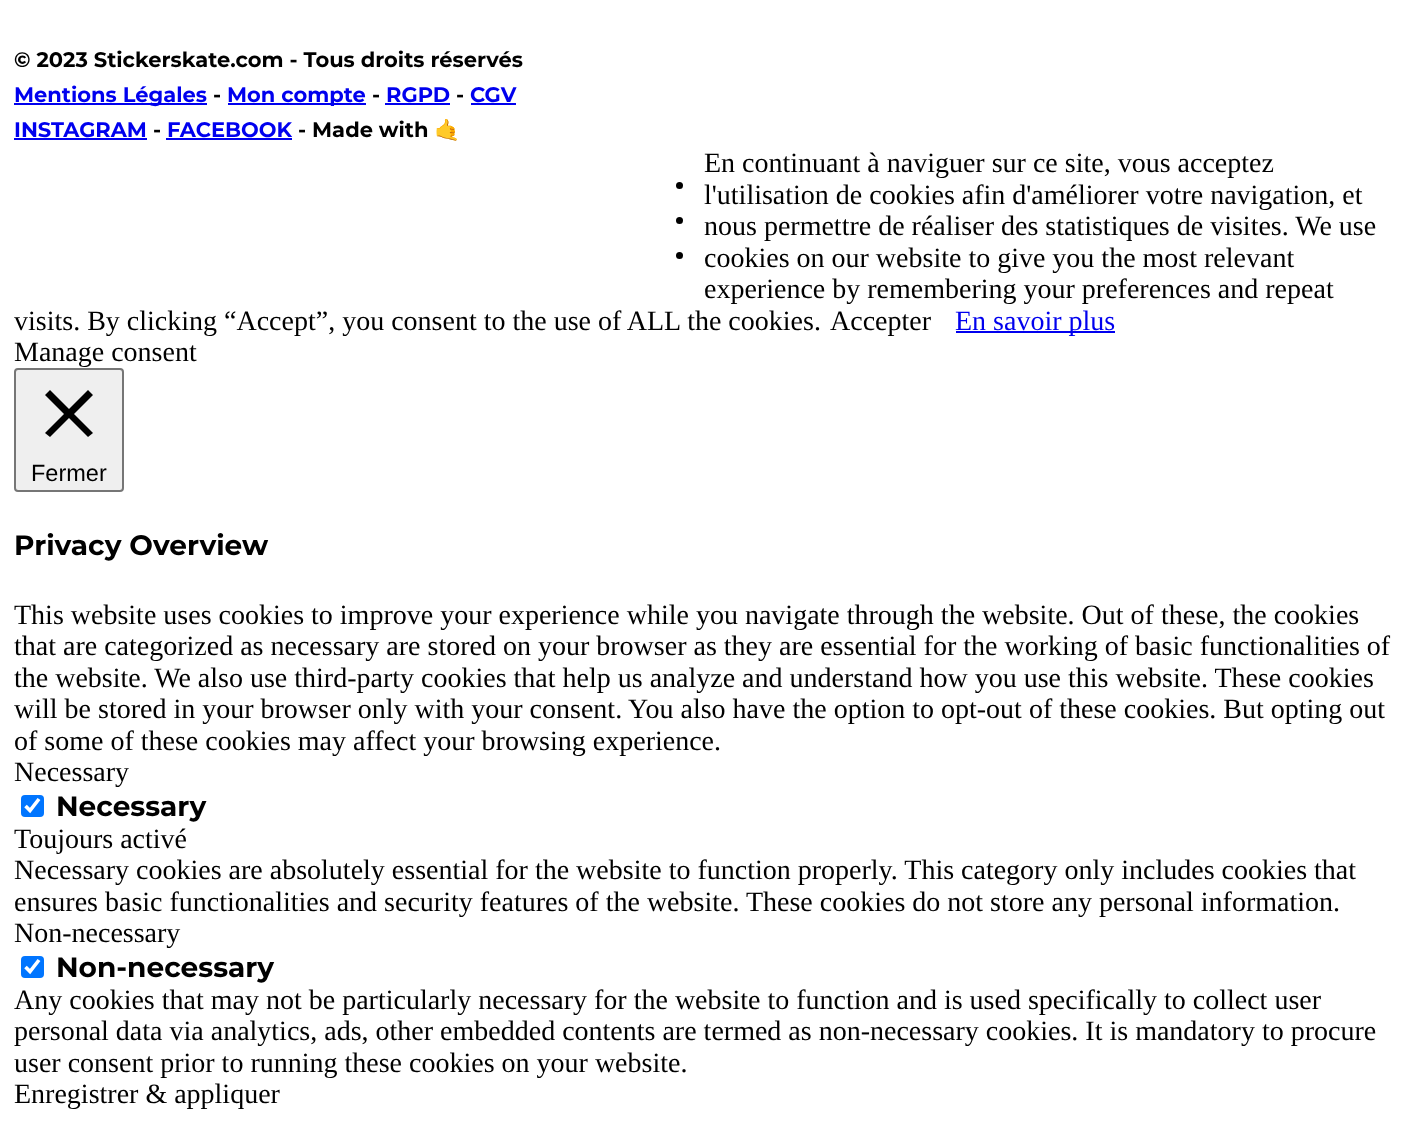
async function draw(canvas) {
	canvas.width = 1410;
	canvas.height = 1125;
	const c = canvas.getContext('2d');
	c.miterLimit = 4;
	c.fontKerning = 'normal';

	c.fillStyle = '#fff';
	c.fillRect(0, 0, 1410, 1125);
	c.font = '100 21px Montserrat';
	c.fillStyle = '#000';
	c.fillText('© 2023 Stickerskate.com - Tous droits réservés', 14, 67);
	c.fillStyle = '#00e';
	c.fillRect(14, 103, 193, 2);
	c.fillText('Mentions Légales', 14, 102);
	c.fillStyle = '#000';
	c.fillText('-', 213, 102);
	c.fillStyle = '#00e';
	c.fillRect(228, 103, 138, 2);
	c.fillText('Mon compte', 227, 102);
	c.fillStyle = '#000';
	c.fillText('-', 372, 102);
	c.fillStyle = '#00e';
	c.fillText('RGPD', 386, 102);
	c.fillRect(385, 103, 65, 2);
	c.fillStyle = '#000';
	c.fillText('-', 456, 102);
	c.fillStyle = '#00e';
	c.fillText('CGV', 470, 102);
	c.fillRect(471, 103, 45, 2);
	c.fillText('INSTAGRAM', 14, 137);
	c.fillRect(14, 138, 133, 2);
	c.fillStyle = '#000';
	c.fillText('-', 153, 137);
	c.fillStyle = '#00e';
	c.fillText('FACEBOOK', 167, 137);
	c.fillRect(166, 138, 126, 2);
	c.fillStyle = '#000';
	c.fillText('- Made with', 298, 137);
	c.font = '21px Noto Color Emoji';
	c.fillText('🤙', 434, 137);
	c.beginPath();
	c.arc(679.5, 185.5, 3.5, 0, 2 * Math.PI);
	c.fill();
	c.beginPath();
	c.arc(679.5, 220.5, 3.5, 0, 2 * Math.PI);
	c.fill();
	c.beginPath();
	c.arc(679.5, 255.5, 3.5, 0, 2 * Math.PI);
	c.fill();
	c.font = '28px Liberation Serif';
	for (const [text, x, y] of [
		['En continuant à naviguer sur ce site, vous acceptez', 704, 172],
		['l\'utilisation de cookies afin d\'améliorer votre navigation, et', 704, 204],
		['nous permettre de réaliser des statistiques de visites. We use', 704, 235],
		['cookies on our website to give you the most relevant', 704, 267],
		['experience by remembering your preferences and repeat', 704, 298],
		['visits. By clicking “Accept”, you consent to the use of ALL the cookies.', 14, 330],
		['Accepter', 830, 330],
	]) {
		c.fillText(text, x, y);
	}
	c.fillStyle = '#00e';
	c.fillRect(956, 331, 159, 2);
	c.fillText('En savoir plus', 955, 330);
	c.fillStyle = '#000';
	c.fillText('Manage consent', 14, 361);
	c.fillStyle = '#efefef';
	c.beginPath();
	c.roundRect(15, 369, 108, 122, 3);
	c.fill();
	c.strokeStyle = '#767676';
	c.lineWidth = 2;
	c.stroke();
	c.fillStyle = '#000';
	c.beginPath();
	c.moveTo(93, 395);
	c.lineTo(88, 390);
	c.lineTo(69, 409);
	c.lineTo(50, 390);
	c.lineTo(45, 395);
	c.lineTo(64, 414);
	c.lineTo(45, 433);
	c.lineTo(50, 437);
	c.lineTo(69, 418);
	c.lineTo(88, 437);
	c.lineTo(93, 433);
	c.lineTo(74, 414);
	c.closePath();
	c.fill();
	c.font = '23.5px Liberation Sans';
	c.fillText('Fermer', 31, 481);
	c.font = '100 28px Montserrat';
	c.fillText('Privacy Overview', 14, 555);
	c.font = '28px Liberation Serif';
	for (const [text, x, y] of [
		['This website uses cookies to improve your experience while you navigate through the website. Out of these, the cookies', 14, 624],
		['that are categorized as necessary are stored on your browser as they are essential for the working of basic functionalities of', 14, 655],
		['the website. We also use third-party cookies that help us analyze and understand how you use this website. These cookies', 14, 687],
		['will be stored in your browser only with your consent. You also have the option to opt-out of these cookies. But opting out', 14, 718],
		['of some of these cookies may affect your browsing experience.', 14, 750],
		['Necessary', 14, 781],
	]) {
		c.fillText(text, x, y);
	}
	c.fillStyle = '#0075ff';
	c.beginPath();
	c.roundRect(21, 795, 23, 22, 4);
	c.fill();
	c.beginPath();
	c.moveTo(25.5, 806);
	c.lineTo(30, 810.5);
	c.lineTo(39, 799);
	c.strokeStyle = '#fff';
	c.lineWidth = 3.6;
	c.stroke();
	c.font = '100 28px Montserrat';
	c.fillStyle = '#000';
	c.fillText('Necessary', 56, 816);
	c.font = '28px Liberation Serif';
	for (const [text, x, y] of [
		['Toujours activé', 14, 848],
		['Necessary cookies are absolutely essential for the website to function properly. This category only includes cookies that', 14, 879],
		['ensures basic functionalities and security features of the website. These cookies do not store any personal information.', 14, 911],
		['Non-necessary', 14, 942],
	]) {
		c.fillText(text, x, y);
	}
	c.fillStyle = '#0075ff';
	c.beginPath();
	c.roundRect(21, 956, 23, 22, 4);
	c.fill();
	c.beginPath();
	c.moveTo(25.5, 967);
	c.lineTo(30, 971.5);
	c.lineTo(39, 960);
	c.stroke();
	c.font = '100 28px Montserrat';
	c.fillStyle = '#000';
	c.fillText('Non-necessary', 56, 977);
	c.font = '28px Liberation Serif';
	for (const [text, x, y] of [
		['Any cookies that may not be particularly necessary for the website to function and is used specifically to collect user', 14, 1009],
		['personal data via analytics, ads, other embedded contents are termed as non-necessary cookies. It is mandatory to procure', 14, 1040],
		['user consent prior to running these cookies on your website.', 14, 1072],
		['Enregistrer & appliquer', 14, 1103],
	]) {
		c.fillText(text, x, y);
	}
}

draw(document.querySelector('canvas'));
